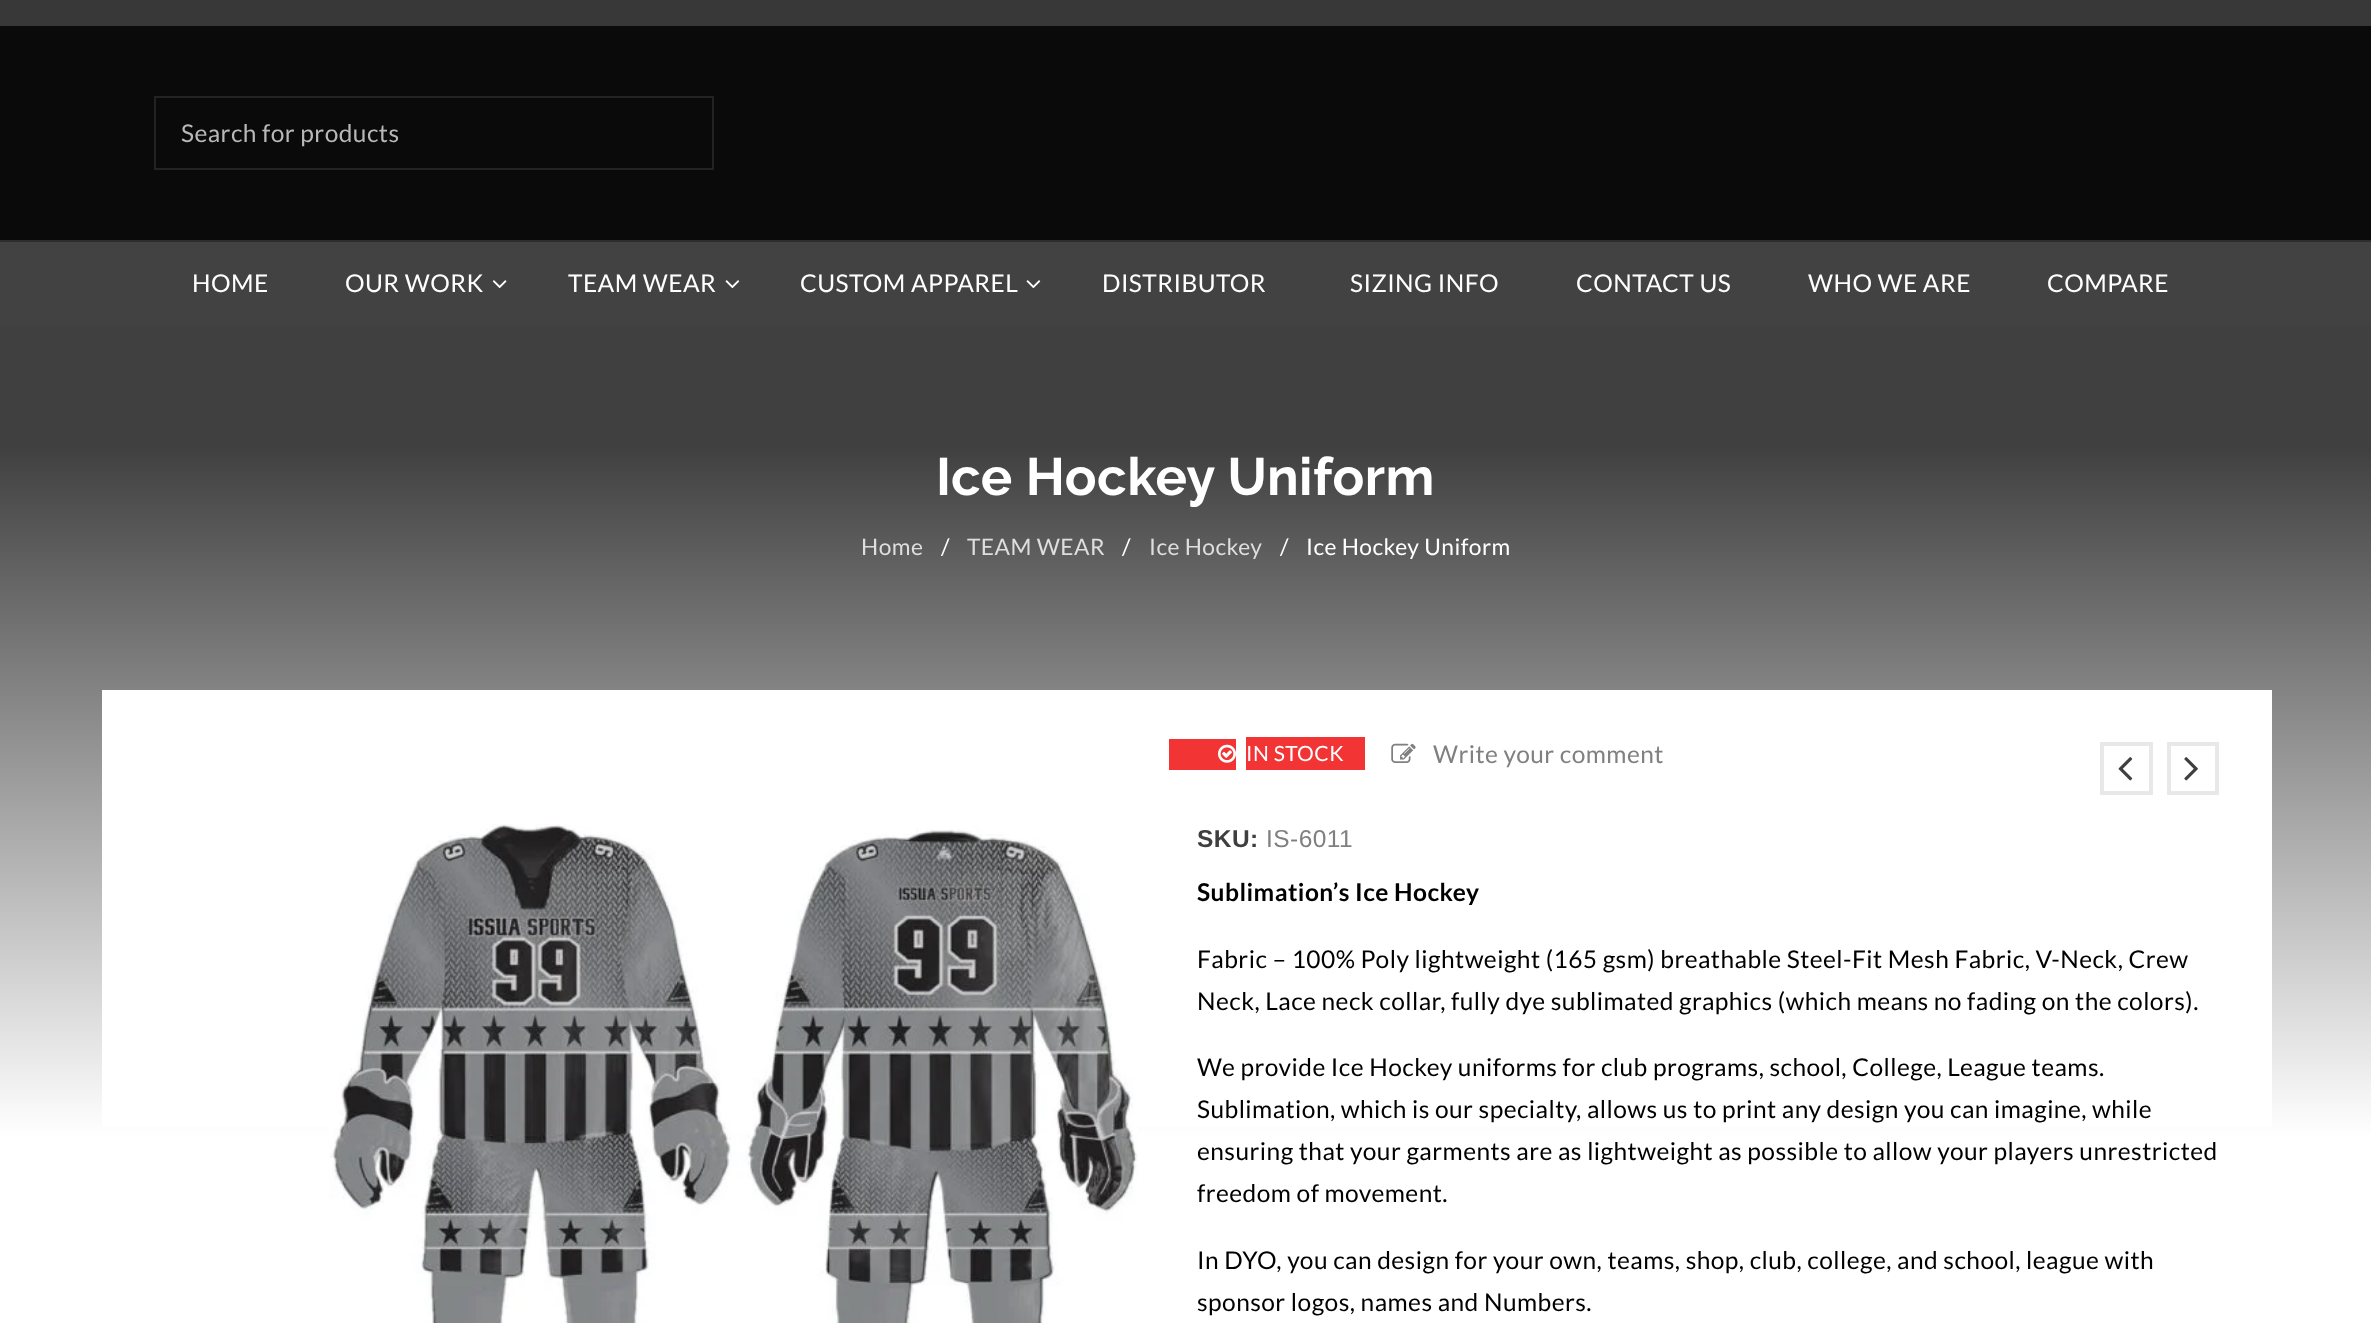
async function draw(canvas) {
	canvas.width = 2371;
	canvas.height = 1323;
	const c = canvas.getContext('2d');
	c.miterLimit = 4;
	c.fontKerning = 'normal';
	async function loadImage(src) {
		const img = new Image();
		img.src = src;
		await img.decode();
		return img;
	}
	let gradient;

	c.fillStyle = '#383838';
	c.fillRect(0, 0, 2371, 1323);
	c.fillStyle = '#0a0a0a';
	c.fillRect(0, 26, 2371, 214);
	c.strokeStyle = '#232323';
	c.lineWidth = 2;
	c.strokeRect(155, 97, 558, 72);
	c.letterSpacing = '0.45px';
	c.font = '24.5px Lato';
	c.fillStyle = '#b8b8b8';
	c.fillText('Search for products', 181, 142);
	c.fillStyle = '#424242';
	c.fillRect(0, 242, 2371, 84);
	c.fillStyle = '#2d2d2d';
	c.fillRect(0, 240, 2371, 2);
	c.fillStyle = '#fff';
	c.fillText('HOME', 192, 292);
	c.fillText('OUR WORK', 345, 292);
	c.drawImage(await loadImage('img1.png'), 492, 280, 15, 9);
	c.fillText('TEAM WEAR', 568, 292);
	c.drawImage(await loadImage('img2.png'), 725, 280, 15, 9);
	c.fillText('CUSTOM APPAREL', 800, 292);
	c.drawImage(await loadImage('img2.png'), 1026, 280, 15, 9);
	for (const [text, x, y] of [
		['DISTRIBUTOR', 1102, 292],
		['SIZING INFO', 1350, 292],
		['CONTACT US', 1576, 292],
		['WHO WE ARE', 1808, 292],
		['COMPARE', 2047, 292],
	]) {
		c.fillText(text, x, y);
	}
	c.fillRect(0, 1136, 2371, 187);
	gradient = c.createLinearGradient(1186, 325, 1186, 1136);
	gradient.addColorStop(0.15, '#404040');
	gradient.addColorStop(1, '#fff');
	c.fillStyle = gradient;
	c.fillRect(0, 326, 2371, 810);
	c.font = 'bold 52.5px Raleway';
	c.fillStyle = '#fff';
	c.fillText('Ice Hockey Uniform', 936, 495);
	c.font = '22.75px Lato';
	c.fillStyle = '#dedede';
	c.fillText('Home', 861, 555);
	c.fillStyle = '#fff';
	c.fillText('/', 941, 555);
	c.fillStyle = '#dedede';
	c.fillText('TEAM WEAR', 967, 555);
	c.fillStyle = '#fff';
	c.fillText('/', 1122, 555);
	c.fillStyle = '#dedede';
	c.fillText('Ice Hockey', 1149, 555);
	c.fillStyle = '#fff';
	c.fillText('/', 1280, 555);
	c.fillText('Ice Hockey Uniform', 1306, 555);
	c.fillRect(102, 690, 2170, 437);
	c.drawImage(await loadImage('img3.png'), 329, 824, 809, 499);
	c.fillStyle = '#f23434';
	c.fillRect(1169, 739, 67, 31);
	c.fillRect(1246, 737, 119, 33);
	c.drawImage(await loadImage('img4.png'), 1218, 744, 18, 19);
	c.font = '21px Lato';
	c.fillStyle = '#fff';
	c.fillText('IN STOCK', 1246, 761);
	c.drawImage(await loadImage('img5.png'), 1391, 743, 25, 20);
	c.font = '24.5px Lato';
	c.fillStyle = '#808080';
	c.fillText('Write your comment', 1433, 763);
	c.strokeStyle = '#e8e8e8';
	c.lineWidth = 4;
	c.strokeRect(2102, 744, 49, 49);
	c.drawImage(await loadImage('img6.png'), 2118, 757, 15, 24);
	c.strokeRect(2169, 744, 48, 49);
	c.drawImage(await loadImage('img7.png'), 2184, 757, 14, 24);
	c.font = 'bold 24.5px Liberation Sans';
	c.fillStyle = '#3f3f3f';
	c.fillText('SKU:', 1197, 847);
	c.font = '24.5px Liberation Sans';
	c.fillStyle = '#808080';
	c.fillText('IS-6011', 1266, 847);
	c.font = 'bold 24.5px Lato';
	c.fillStyle = '#000';
	c.fillText('Sublimation’s Ice Hockey', 1197, 901);
	c.font = '24.5px Lato';
	for (const [text, x, y] of [
		['Fabric – 100% Poly lightweight (165 gsm) breathable Steel-Fit Mesh Fabric, V-Neck, Crew', 1197, 968],
		['Neck, Lace neck collar, fully dye sublimated graphics (which means no fading on the colors).', 1197, 1010],
		['We provide Ice Hockey uniforms for club programs, school, College, League teams.', 1197, 1076],
		['Sublimation, which is our specialty, allows us to print any design you can imagine, while', 1197, 1118],
		['ensuring that your garments are as lightweight as possible to allow your players unrestricted', 1197, 1160],
		['freedom of movement.', 1197, 1202],
		['In DYO, you can design for your own, teams, shop, club, college, and school, league with', 1197, 1269],
		['sponsor logos, names and Numbers.', 1197, 1311],
	]) {
		c.fillText(text, x, y);
	}
}

draw(document.querySelector('canvas'));
